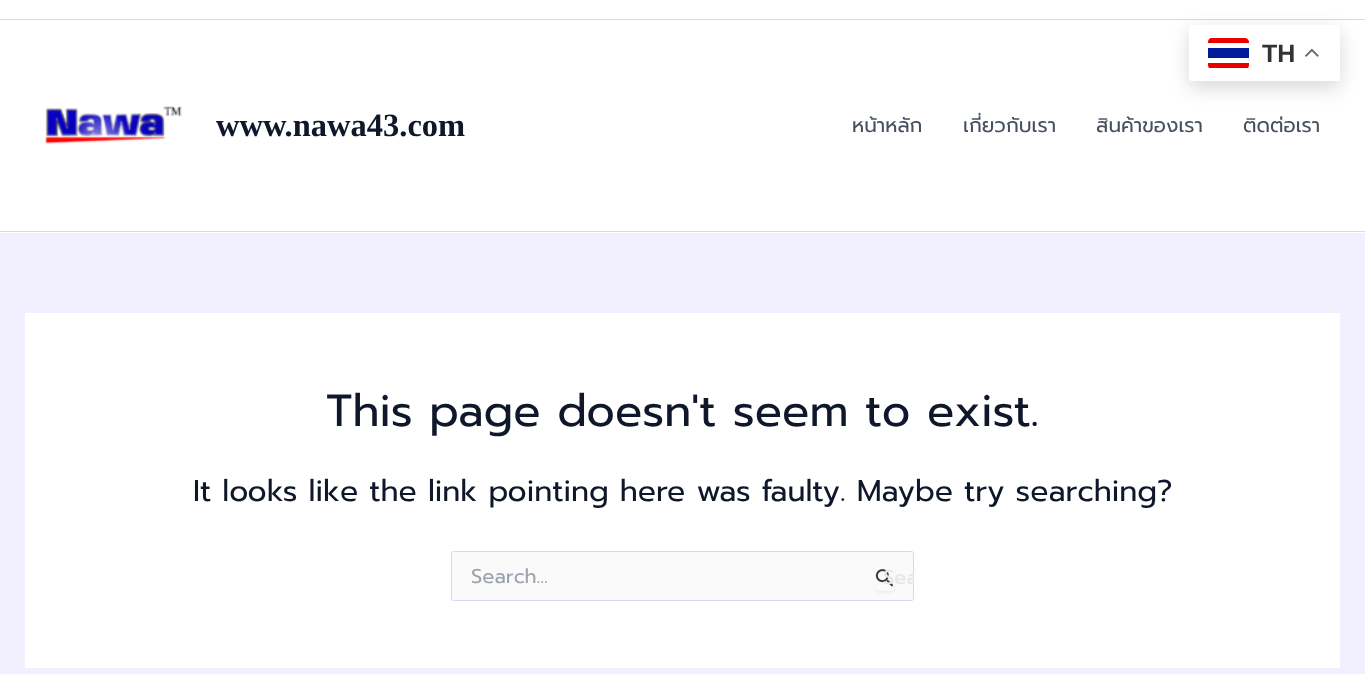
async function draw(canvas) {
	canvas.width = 1365;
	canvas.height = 674;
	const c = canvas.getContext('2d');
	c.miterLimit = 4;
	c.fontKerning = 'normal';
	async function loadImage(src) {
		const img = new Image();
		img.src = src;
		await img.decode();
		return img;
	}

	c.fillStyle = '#f2f0fe';
	c.fillRect(0, 0, 1365, 674);
	for (const [x, y, w, h, color] of [
		[0, 0, 1365, 19, '#fff'],
		[0, 19, 1365, 1, '#d8d8f5'],
		[0, 20, 1365, 213, '#fff'],
	]) {
		c.fillStyle = color;
		c.fillRect(x, y, w, h);
	}
	c.fillStyle = '#00000026';
	c.filter = 'blur(9.5px)';
	c.beginPath();
	c.roundRect(1189, 31, 151, 57, 2.5);
	c.fill();
	c.filter = 'none';
	c.fillStyle = '#fff';
	c.beginPath();
	c.roundRect(1189, 25, 151, 56, 2.5);
	c.fill();
	c.fillStyle = '#001b9a';
	c.fillRect(1208, 48, 41, 10);
	c.fillStyle = '#e70000';
	c.beginPath();
	c.moveTo(1212, 38);
	c.bezierCurveTo(1209, 38, 1208, 40, 1208, 43);
	c.lineTo(1249, 43);
	c.lineTo(1249, 42);
	c.bezierCurveTo(1249, 40, 1247, 38, 1245, 38);
	c.closePath();
	c.moveTo(1208, 63);
	c.bezierCurveTo(1208, 65, 1208, 67, 1209, 68);
	c.lineTo(1248, 68);
	c.bezierCurveTo(1249, 67, 1249, 65, 1249, 63);
	c.closePath();
	c.fill('evenodd');
	c.font = 'bold 25px Liberation Sans';
	c.fillStyle = '#333';
	c.fillText('TH', 1262, 62);
	c.drawImage(await loadImage('img1.png'), 1305, 48, 14, 9);
	c.fillStyle = '#d8d8f5';
	c.fillRect(0, 231, 1365, 1);
	c.drawImage(await loadImage('img2.png'), 45, 106, 137, 38);
	c.font = 'bold 32.5px Liberation Serif';
	c.fillStyle = '#0f172a';
	c.fillText('www.nawa43.com', 216, 136);
	c.font = '20px Prompt';
	c.fillStyle = '#454f5e';
	for (const [text, x, y] of [
		['หน้าหลัก', 852, 132],
		['เกี่ยวกับเรา', 963, 132],
		['สินค้าของเรา', 1096, 132],
		['ติดต่อเรา', 1243, 132],
	]) {
		c.fillText(text, x, y);
	}
	c.fillStyle = '#fff';
	c.fillRect(25, 313, 1315, 355);
	c.font = '45px Prompt';
	c.fillStyle = '#0f172a';
	c.fillText('This page doesn\'t seem to exist.', 326, 426);
	c.font = '30px Prompt';
	c.fillText('It looks like the link pointing here was faulty. Maybe try searching?', 193, 501);
	c.fillStyle = '#fafafa';
	c.beginPath();
	c.roundRect(451.5, 551.5, 462, 49, 2);
	c.fill();
	c.strokeStyle = '#d8d8f5';
	c.stroke();
	c.font = '20px Prompt';
	c.fillStyle = '#9ca3af';
	c.fillText('Search...', 471, 583);
	c.save();
	c.beginPath();
	c.moveTo(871, 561);
	c.lineTo(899, 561);
	c.lineTo(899, 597);
	c.lineTo(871, 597);
	c.closePath();
	c.moveTo(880, 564);
	c.lineTo(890, 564);
	c.bezierCurveTo(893, 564, 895, 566, 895, 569);
	c.lineTo(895, 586);
	c.bezierCurveTo(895, 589, 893, 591, 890, 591);
	c.lineTo(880, 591);
	c.bezierCurveTo(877, 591, 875, 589, 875, 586);
	c.lineTo(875, 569);
	c.bezierCurveTo(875, 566, 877, 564, 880, 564);
	c.closePath();
	c.clip('evenodd');
	c.fillStyle = '#0000000d';
	c.filter = 'blur(1px)';
	c.beginPath();
	c.roundRect(875, 565, 20, 28, 5);
	c.fill();
	c.filter = 'none';
	c.restore();
	c.drawImage(await loadImage('img3.png'), 875, 569, 18, 18);
	c.save();
	c.beginPath();
	c.roundRect(858, 551, 56, 53, 2.5);
	c.clip();
	c.font = '500 20px Prompt';
	c.fillStyle = '#e7e7e8';
	c.fillText('Sea', 883, 584);
	c.restore();
}

draw(document.querySelector('canvas'));
